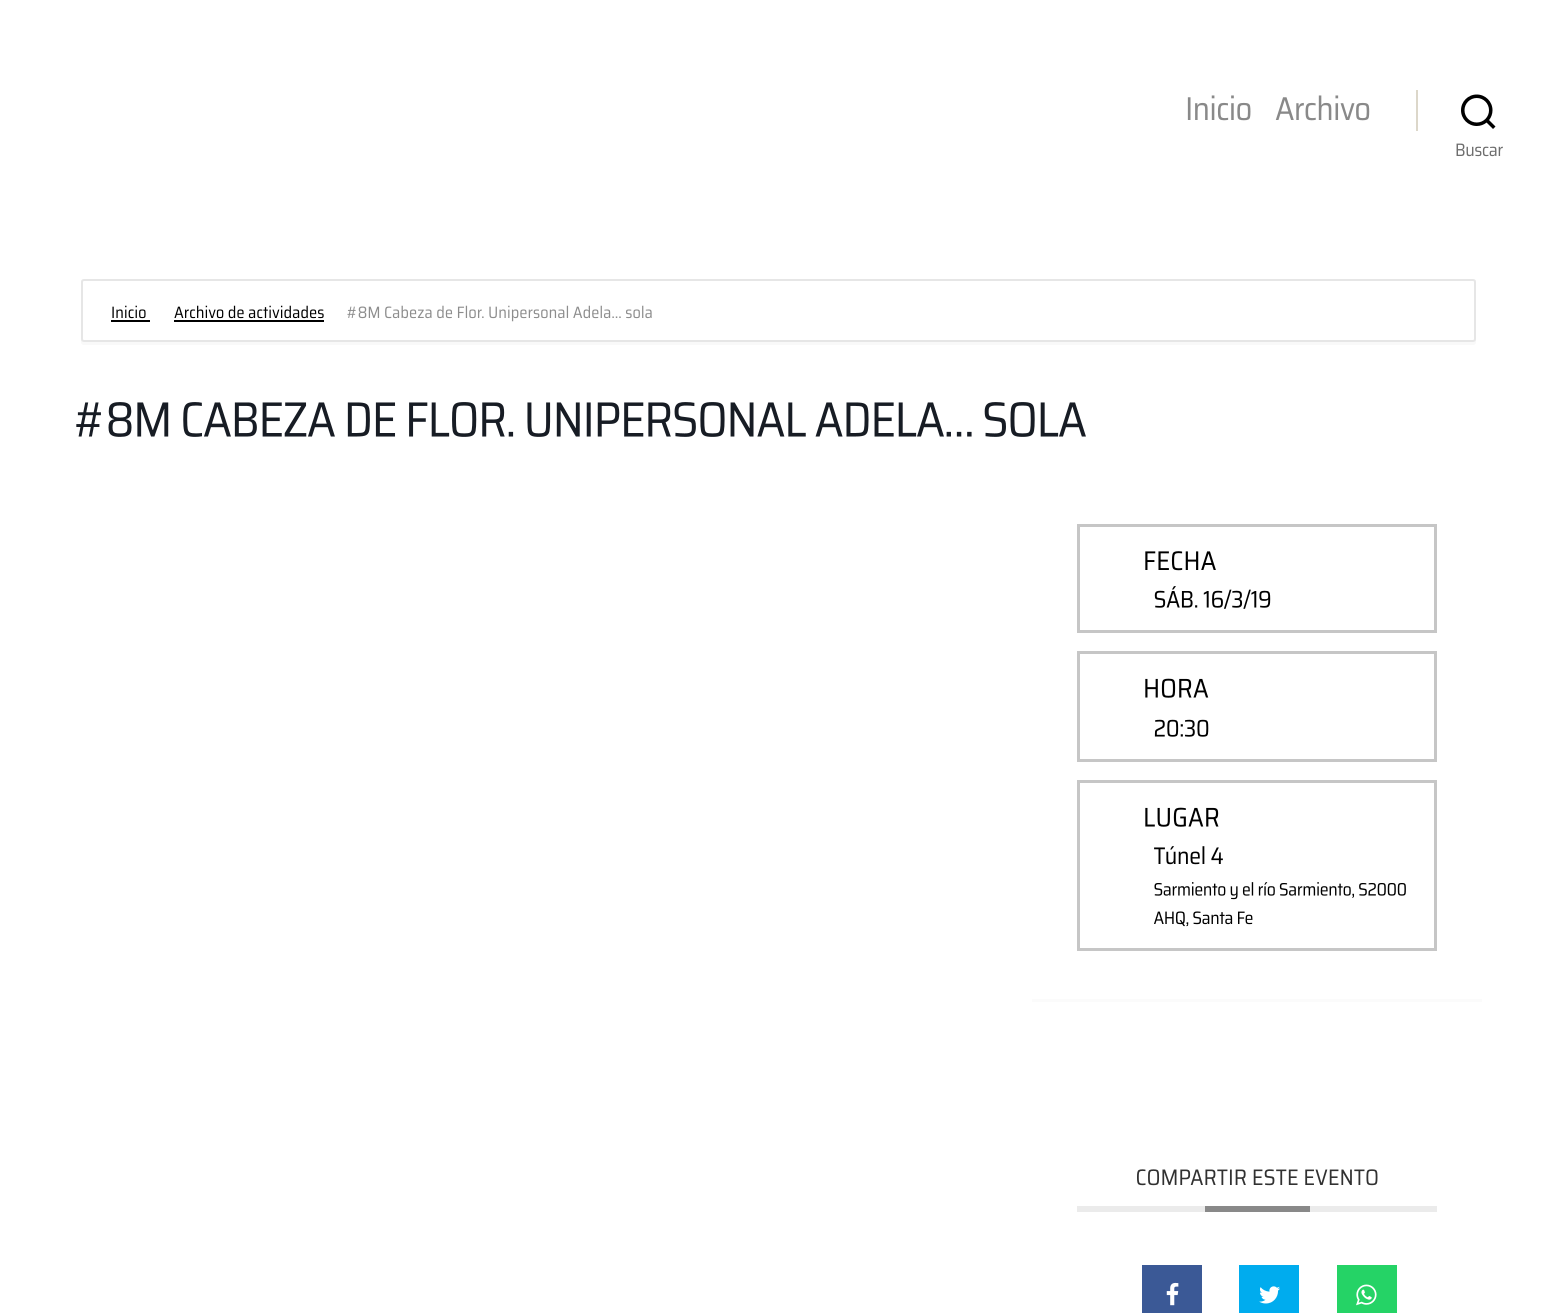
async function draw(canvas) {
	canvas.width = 1555;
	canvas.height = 1313;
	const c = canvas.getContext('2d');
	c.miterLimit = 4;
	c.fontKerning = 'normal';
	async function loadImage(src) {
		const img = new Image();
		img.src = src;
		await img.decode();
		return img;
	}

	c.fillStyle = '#fff';
	c.fillRect(0, 0, 1555, 1313);
	c.drawImage(await loadImage('img1.png'), 1187, 95, 64, 26);
	c.drawImage(await loadImage('img2.png'), 1275, 95, 95, 26);
	c.fillStyle = '#dcd7ca';
	c.fillRect(1416, 90, 2, 41);
	c.drawImage(await loadImage('img3.png'), 1461, 94, 35, 35);
	c.drawImage(await loadImage('img4.png'), 1456, 143, 47, 14);
	c.fillStyle = '#f9f9f9';
	c.beginPath();
	c.moveTo(81, 339);
	c.lineTo(81, 342);
	c.bezierCurveTo(81, 344, 82, 345, 84, 345);
	c.lineTo(1473, 345);
	c.bezierCurveTo(1475, 345, 1476, 344, 1476, 342);
	c.lineTo(1476, 339);
	c.bezierCurveTo(1476, 341, 1475, 342, 1473, 342);
	c.lineTo(84, 342);
	c.bezierCurveTo(82, 342, 81, 341, 81, 339);
	c.closePath();
	c.fill();
	c.beginPath();
	c.roundRect(82, 280, 1393, 61, 2);
	c.strokeStyle = '#e6e6e6';
	c.lineWidth = 2;
	c.stroke();
	c.drawImage(await loadImage('img5.png'), 112, 305, 34, 14);
	c.drawImage(await loadImage('img6.png'), 174, 305, 150, 14);
	c.drawImage(await loadImage('img7.png'), 347, 305, 305, 17);
	c.fillStyle = '#000';
	c.fillRect(111, 320, 39, 2);
	c.fillRect(174, 320, 150, 2);
	c.drawImage(await loadImage('img8.png'), 76, 402, 1010, 35);
	c.fillStyle = '#fbfbfb';
	c.fillRect(1032, 999, 450, 3);
	c.strokeStyle = '#c6c6c6';
	c.lineWidth = 3;
	c.strokeRect(1078.5, 525.5, 357, 106);
	c.drawImage(await loadImage('img9.png'), 1145, 551, 71, 20);
	c.drawImage(await loadImage('img10.png'), 1154, 586, 44, 22);
	c.drawImage(await loadImage('img11.png'), 1203, 589, 68, 20);
	c.strokeRect(1078.5, 652.5, 357, 108);
	c.drawImage(await loadImage('img12.png'), 1145, 678, 64, 20);
	c.drawImage(await loadImage('img13.png'), 1154, 719, 55, 18);
	c.strokeRect(1078.5, 781.5, 357, 168);
	c.drawImage(await loadImage('img14.png'), 1145, 807, 74, 20);
	c.drawImage(await loadImage('img15.png'), 1154, 846, 69, 19);
	c.drawImage(await loadImage('img16.png'), 1154, 882, 252, 18);
	c.drawImage(await loadImage('img17.png'), 1154, 911, 99, 16);
	c.fillStyle = '#ebebeb';
	c.fillRect(1077, 1206, 360, 6);
	c.drawImage(await loadImage('img18.png'), 1137, 1169, 241, 17);
	c.fillStyle = '#898989';
	c.fillRect(1205, 1206, 105, 6);
	c.fillStyle = '#3b5996';
	c.fillRect(1142, 1265, 60, 48);
	c.drawImage(await loadImage('img19.png'), 1166, 1282, 13, 24);
	c.fillStyle = '#00acee';
	c.fillRect(1239, 1265, 60, 48);
	c.drawImage(await loadImage('img20.png'), 1259, 1286, 21, 18);
	c.fillStyle = '#25d366';
	c.fillRect(1337, 1265, 60, 48);
	c.drawImage(await loadImage('img21.png'), 1356, 1284, 21, 22);
}

draw(document.querySelector('canvas'));
